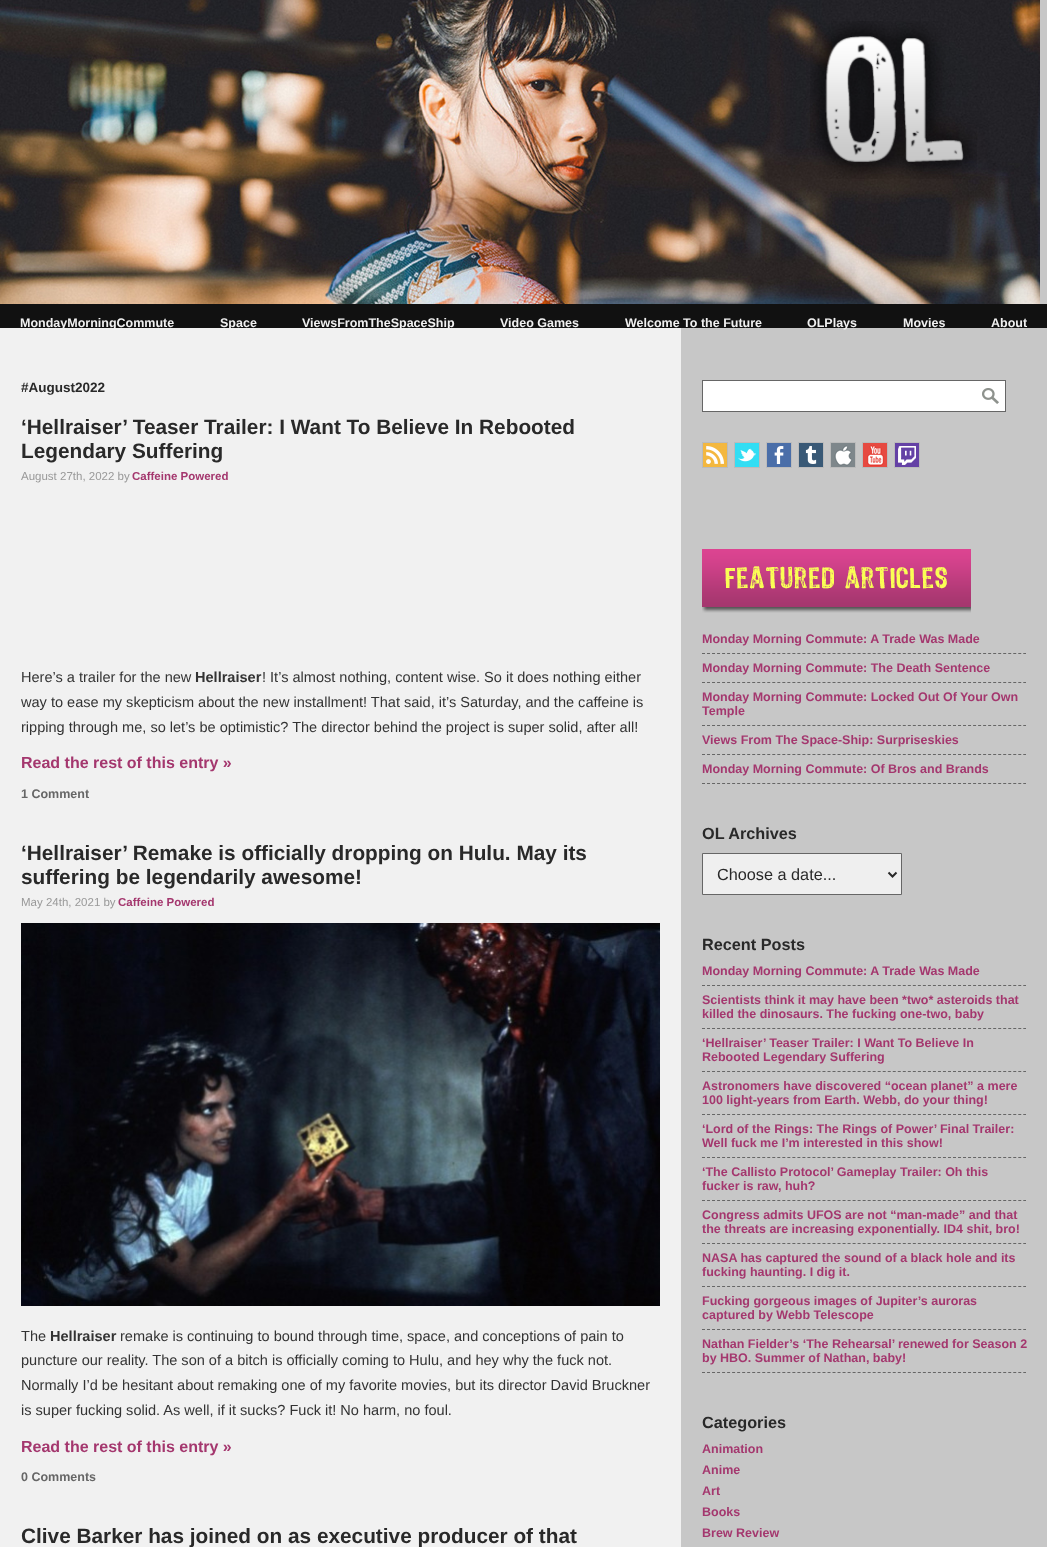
async function draw(canvas) {
	canvas.width = 1047;
	canvas.height = 1547;
	const c = canvas.getContext('2d');
	c.miterLimit = 4;
	c.fontKerning = 'normal';
	async function loadImage(src) {
		const img = new Image();
		img.src = src;
		await img.decode();
		return img;
	}

	c.fillStyle = '#c7c7c7';
	c.fillRect(0, 0, 1047, 1547);
	c.drawImage(await loadImage('img1.png'), 0, 0, 1040, 304);
	c.drawImage(await loadImage('img2.png'), 810, 21, 167, 158);
	c.fillStyle = '#111';
	c.fillRect(0, 304, 1047, 24);
	c.fillStyle = '#f1f1f1';
	c.fillRect(0, 328, 681, 1219);
	c.font = 'bold 12.5px Liberation Sans';
	for (const [text, x, y] of [
		['MondayMorningCommute', 20, 327],
		['Space', 220, 327],
		['ViewsFromTheSpaceShip', 302, 327],
		['Video Games', 500, 327],
		['Welcome To the Future', 625, 327],
		['OLPlays', 807, 327],
		['Movies', 903, 327],
		['About', 991, 327],
	]) {
		c.fillText(text, x, y);
	}
	c.font = 'bold 13.5px Liberation Sans';
	c.fillStyle = '#292929';
	c.fillText('#August2022', 21, 392);
	c.font = 'bold 20.8px Liberation Sans';
	c.fillText('‘Hellraiser’ Teaser Trailer: I Want To Believe In Rebooted', 21, 434);
	c.fillText('Legendary Suffering', 21, 458);
	c.font = '11.5px Liberation Sans';
	c.fillStyle = '#999';
	c.fillText('August 27th, 2022 by', 21, 480);
	c.font = 'bold 11.5px Liberation Sans';
	c.fillStyle = '#a4376e';
	c.fillText('Caffeine Powered', 132, 480);
	c.font = '14.55px Liberation Sans';
	c.fillStyle = '#333';
	c.fillText('Here’s a trailer for the new', 21, 682);
	c.font = 'bold 14.55px Liberation Sans';
	c.fillText('Hellraiser', 195, 682);
	c.font = '14.55px Liberation Sans';
	for (const [text, x, y] of [
		['! It’s almost nothing, content wise. So it does nothing either', 262, 682],
		['way to ease my skepticism about the new installment! That said, it’s Saturday, and the caffeine is', 21, 707],
		['ripping through me, so let’s be optimistic? The director behind the project is super solid, after all!', 21, 732],
	]) {
		c.fillText(text, x, y);
	}
	c.font = 'bold 16px Liberation Sans';
	c.fillStyle = '#a4376e';
	c.fillText('Read the rest of this entry »', 21, 768);
	c.font = 'bold 12.5px Liberation Sans';
	c.fillStyle = '#666';
	c.fillText('1 Comment', 21, 798);
	c.font = 'bold 20.8px Liberation Sans';
	c.fillStyle = '#292929';
	c.fillText('‘Hellraiser’ Remake is officially dropping on Hulu. May its', 21, 860);
	c.fillText('suffering be legendarily awesome!', 21, 884);
	c.font = '11.5px Liberation Sans';
	c.fillStyle = '#999';
	c.fillText('May 24th, 2021 by', 21, 906);
	c.font = 'bold 11.5px Liberation Sans';
	c.fillStyle = '#a4376e';
	c.fillText('Caffeine Powered', 118, 906);
	c.drawImage(await loadImage('img3.png'), 21, 923, 639, 383);
	c.font = '14.55px Liberation Sans';
	c.fillStyle = '#333';
	c.fillText('The', 21, 1341);
	c.font = 'bold 14.55px Liberation Sans';
	c.fillText('Hellraiser', 50, 1341);
	c.font = '14.55px Liberation Sans';
	for (const [text, x, y] of [
		['remake is continuing to bound through time, space, and conceptions of pain to', 120, 1341],
		['puncture our reality. The son of a bitch is officially coming to Hulu, and hey why the fuck not.', 21, 1365],
		['Normally I’d be hesitant about remaking one of my favorite movies, but its director David Bruckner', 21, 1390],
		['is super fucking solid. As well, if it sucks? Fuck it! No harm, no foul.', 21, 1415],
	]) {
		c.fillText(text, x, y);
	}
	c.font = 'bold 16px Liberation Sans';
	c.fillStyle = '#a4376e';
	c.fillText('Read the rest of this entry »', 21, 1452);
	c.font = 'bold 12.5px Liberation Sans';
	c.fillStyle = '#666';
	c.fillText('0 Comments', 21, 1481);
	c.font = 'bold 20.8px Liberation Sans';
	c.fillStyle = '#292929';
	c.fillText('Clive Barker has joined on as executive producer of that', 21, 1543);
	for (const [x, y, w, h, color] of [
		[703, 381, 302, 30, '#fff'],
		[702, 380, 304, 1, '#666'],
		[702, 411, 274, 1, '#666'],
		[702, 380, 1, 32, '#666'],
	]) {
		c.fillStyle = color;
		c.fillRect(x, y, w, h);
	}
	c.drawImage(await loadImage('img4.png'), 982, 388, 17, 16);
	c.fillRect(1005, 380, 1, 32);
	c.fillRect(976, 411, 30, 1);
	c.drawImage(await loadImage('img5.png'), 703, 443, 24, 24);
	c.strokeStyle = '#bbb';
	c.strokeRect(702.5, 442.5, 25, 25);
	c.drawImage(await loadImage('img6.png'), 735, 443, 24, 24);
	c.strokeRect(734.5, 442.5, 25, 25);
	c.drawImage(await loadImage('img7.png'), 767, 443, 24, 24);
	c.strokeRect(766.5, 442.5, 25, 25);
	c.drawImage(await loadImage('img8.png'), 799, 443, 24, 24);
	c.strokeRect(798.5, 442.5, 25, 25);
	c.drawImage(await loadImage('img9.png'), 831, 443, 24, 24);
	c.strokeRect(830.5, 442.5, 25, 25);
	c.drawImage(await loadImage('img10.png'), 863, 443, 24, 24);
	c.strokeRect(862.5, 442.5, 25, 25);
	c.drawImage(await loadImage('img11.png'), 895, 443, 24, 24);
	c.strokeRect(894.5, 442.5, 25, 25);
	c.drawImage(await loadImage('img12.png'), 702, 549, 269, 64);
	c.beginPath();
	c.moveTo(702, 653.5);
	c.lineTo(1026, 653.5);
	c.strokeStyle = '#666';
	c.setLineDash([3, 2.02]);
	c.stroke();
	c.font = 'bold 12.5px Liberation Sans';
	c.fillStyle = '#a4376e';
	c.fillText('Monday Morning Commute: A Trade Was Made', 702, 643);
	c.beginPath();
	c.moveTo(702, 682.5);
	c.lineTo(1026, 682.5);
	c.stroke();
	c.fillText('Monday Morning Commute: The Death Sentence', 702, 672);
	c.beginPath();
	c.moveTo(702, 725.5);
	c.lineTo(1026, 725.5);
	c.stroke();
	c.fillText('Monday Morning Commute: Locked Out Of Your Own', 702, 701);
	c.fillText('Temple', 702, 715);
	c.beginPath();
	c.moveTo(702, 754.5);
	c.lineTo(1026, 754.5);
	c.stroke();
	c.fillText('Views From The Space-Ship: Surpriseskies', 702, 744);
	c.beginPath();
	c.moveTo(702, 783.5);
	c.lineTo(1026, 783.5);
	c.stroke();
	c.fillText('Monday Morning Commute: Of Bros and Brands', 702, 773);
	c.font = 'bold 16.25px Liberation Sans';
	c.fillStyle = '#292929';
	c.fillText('OL Archives', 702, 839);
	c.fillStyle = '#efefef';
	c.beginPath();
	c.rect(702.5, 853.5, 199, 41);
	c.fill();
	c.setLineDash([]);
	c.stroke();
	c.beginPath();
	c.moveTo(888.5, 872.5);
	c.lineTo(892.5, 876.5);
	c.lineTo(896.5, 872.5);
	c.strokeStyle = '#292929';
	c.lineWidth = 2;
	c.stroke();
	c.font = '16.25px Liberation Sans';
	c.fillStyle = '#292929';
	c.fillText('Choose a date...', 717, 880);
	c.font = 'bold 16.25px Liberation Sans';
	c.fillText('Recent Posts', 702, 950);
	c.beginPath();
	c.moveTo(702, 985.5);
	c.lineTo(1026, 985.5);
	c.strokeStyle = '#666';
	c.lineWidth = 1;
	c.setLineDash([3, 2.02]);
	c.stroke();
	c.font = 'bold 12.5px Liberation Sans';
	c.fillStyle = '#a4376e';
	c.fillText('Monday Morning Commute: A Trade Was Made', 702, 975);
	c.beginPath();
	c.moveTo(702, 1028.5);
	c.lineTo(1026, 1028.5);
	c.stroke();
	c.fillText('Scientists think it may have been *two* asteroids that', 702, 1004);
	c.fillText('killed the dinosaurs. The fucking one-two, baby', 702, 1018);
	c.beginPath();
	c.moveTo(702, 1071.5);
	c.lineTo(1026, 1071.5);
	c.stroke();
	c.fillText('‘Hellraiser’ Teaser Trailer: I Want To Believe In', 702, 1047);
	c.fillText('Rebooted Legendary Suffering', 702, 1061);
	c.beginPath();
	c.moveTo(702, 1114.5);
	c.lineTo(1026, 1114.5);
	c.stroke();
	c.fillText('Astronomers have discovered “ocean planet” a mere', 702, 1090);
	c.fillText('100 light-years from Earth. Webb, do your thing!', 702, 1104);
	c.beginPath();
	c.moveTo(702, 1157.5);
	c.lineTo(1026, 1157.5);
	c.stroke();
	c.fillText('‘Lord of the Rings: The Rings of Power’ Final Trailer:', 702, 1133);
	c.fillText('Well fuck me I’m interested in this show!', 702, 1147);
	c.beginPath();
	c.moveTo(702, 1200.5);
	c.lineTo(1026, 1200.5);
	c.stroke();
	c.fillText('‘The Callisto Protocol’ Gameplay Trailer: Oh this', 702, 1176);
	c.fillText('fucker is raw, huh?', 702, 1190);
	c.beginPath();
	c.moveTo(702, 1243.5);
	c.lineTo(1026, 1243.5);
	c.stroke();
	c.fillText('Congress admits UFOS are not “man-made” and that', 702, 1219);
	c.fillText('the threats are increasing exponentially. ID4 shit, bro!', 702, 1233);
	c.beginPath();
	c.moveTo(702, 1286.5);
	c.lineTo(1026, 1286.5);
	c.stroke();
	c.fillText('NASA has captured the sound of a black hole and its', 702, 1262);
	c.fillText('fucking haunting. I dig it.', 702, 1276);
	c.beginPath();
	c.moveTo(702, 1329.5);
	c.lineTo(1026, 1329.5);
	c.stroke();
	c.fillText('Fucking gorgeous images of Jupiter’s auroras', 702, 1305);
	c.fillText('captured by Webb Telescope', 702, 1319);
	c.beginPath();
	c.moveTo(702, 1372.5);
	c.lineTo(1026, 1372.5);
	c.stroke();
	c.fillText('Nathan Fielder’s ‘The Rehearsal’ renewed for Season 2', 702, 1348);
	c.fillText('by HBO. Summer of Nathan, baby!', 702, 1362);
	c.font = 'bold 16.25px Liberation Sans';
	c.fillStyle = '#292929';
	c.fillText('Categories', 702, 1428);
	c.font = 'bold 12.5px Liberation Sans';
	c.fillStyle = '#a4376e';
	for (const [text, x, y] of [
		['Animation', 702, 1453],
		['Anime', 702, 1474],
		['Art', 702, 1495],
		['Books', 702, 1516],
		['Brew Review', 702, 1537],
	]) {
		c.fillText(text, x, y);
	}
}

draw(document.querySelector('canvas'));
